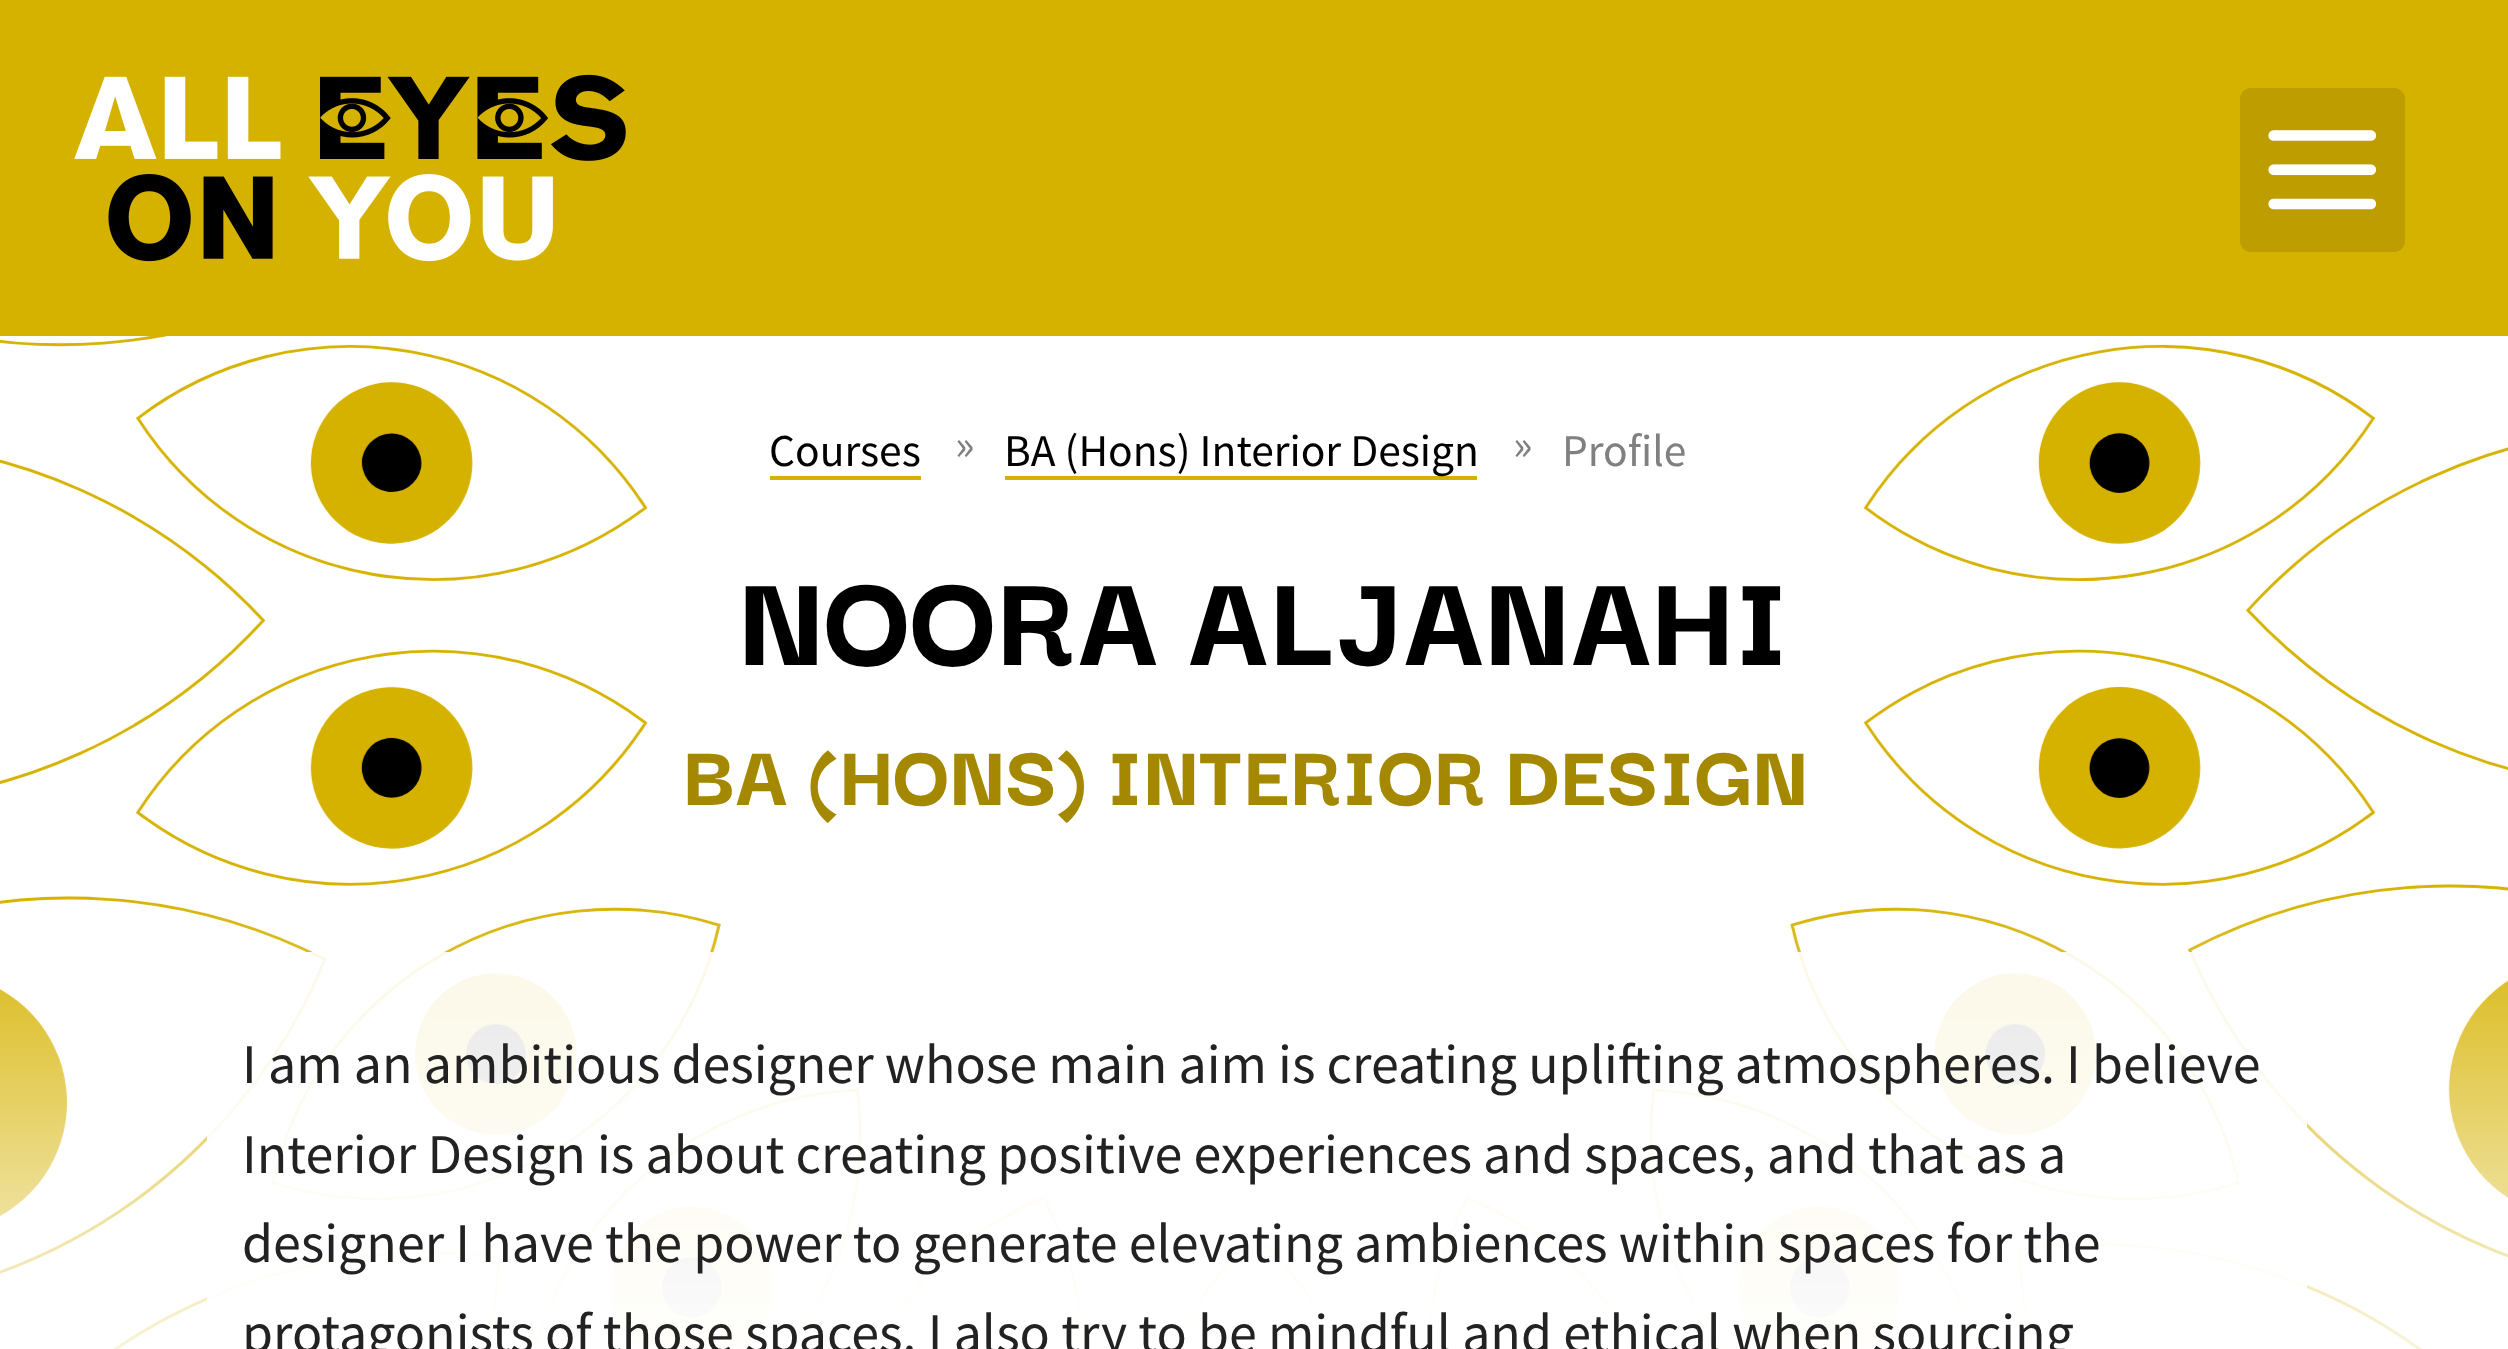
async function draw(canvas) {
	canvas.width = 2508;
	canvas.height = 1349;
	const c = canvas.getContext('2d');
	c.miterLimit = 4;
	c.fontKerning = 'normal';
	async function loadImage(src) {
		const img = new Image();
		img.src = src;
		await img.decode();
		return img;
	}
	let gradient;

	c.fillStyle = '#fff';
	c.fillRect(0, 0, 2508, 1349);
	c.fillStyle = '#d6b200';
	c.fillRect(0, 0, 2508, 336);
	c.drawImage(await loadImage('img1.png'), 74, 74, 552, 188);
	c.fillStyle = '#bd9d00';
	c.beginPath();
	c.roundRect(2240, 88, 165, 164, 11);
	c.fill();
	c.drawImage(await loadImage('img2.png'), 2268, 130, 109, 80);
	c.drawImage(await loadImage('img3.png'), 0, 336, 2508, 1013);
	gradient = c.createLinearGradient(1256, 890, 1256, 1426);
	gradient.addColorStop(0, '#ffffff00');
	gradient.addColorStop(1, '#fff');
	c.fillStyle = gradient;
	c.fillRect(0, 902, 2508, 447);
	c.font = '45.5px Source Sans Pro';
	c.fillStyle = '#000';
	c.fillText('Courses', 769, 466);
	c.fillStyle = '#d6b200';
	c.fillRect(770, 476, 151, 4);
	c.fillStyle = '#808080';
	c.fillText('»', 955, 460);
	c.fillStyle = '#d6b200';
	c.fillRect(1005, 476, 472, 4);
	c.fillStyle = '#000';
	c.fillText('BA (Hons) Interior Design', 1004, 466);
	c.fillStyle = '#808080';
	c.fillText('»', 1513, 460);
	c.fillText('Profile', 1562, 466);
	c.font = '800 140px Darker Grotesque';
	c.fillStyle = '#000';
	c.fillText('NOORA ALJANAHI', 738, 665);
	c.font = '800 91px Darker Grotesque';
	c.fillStyle = '#a38800';
	c.fillText('BA (HONS) INTERIOR DESIGN', 683, 805);
	c.fillStyle = '#ffffffe6';
	c.beginPath();
	c.roundRect(207, 952, 2100, 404, 7);
	c.fill();
	c.font = '56px Source Sans Pro';
	c.fillStyle = '#222';
	for (const [text, x, y] of [
		['I am an ambitious designer whose main aim is creating uplifting atmospheres. I believe', 242, 1083],
		['Interior Design is about creating positive experiences and spaces, and that as a', 242, 1173],
		['designer I have the power to generate elevating ambiences within spaces for the', 242, 1262],
		['protagonists of those spaces. I also try to be mindful and ethical when sourcing', 242, 1352],
	]) {
		c.fillText(text, x, y);
	}
}

draw(document.querySelector('canvas'));
